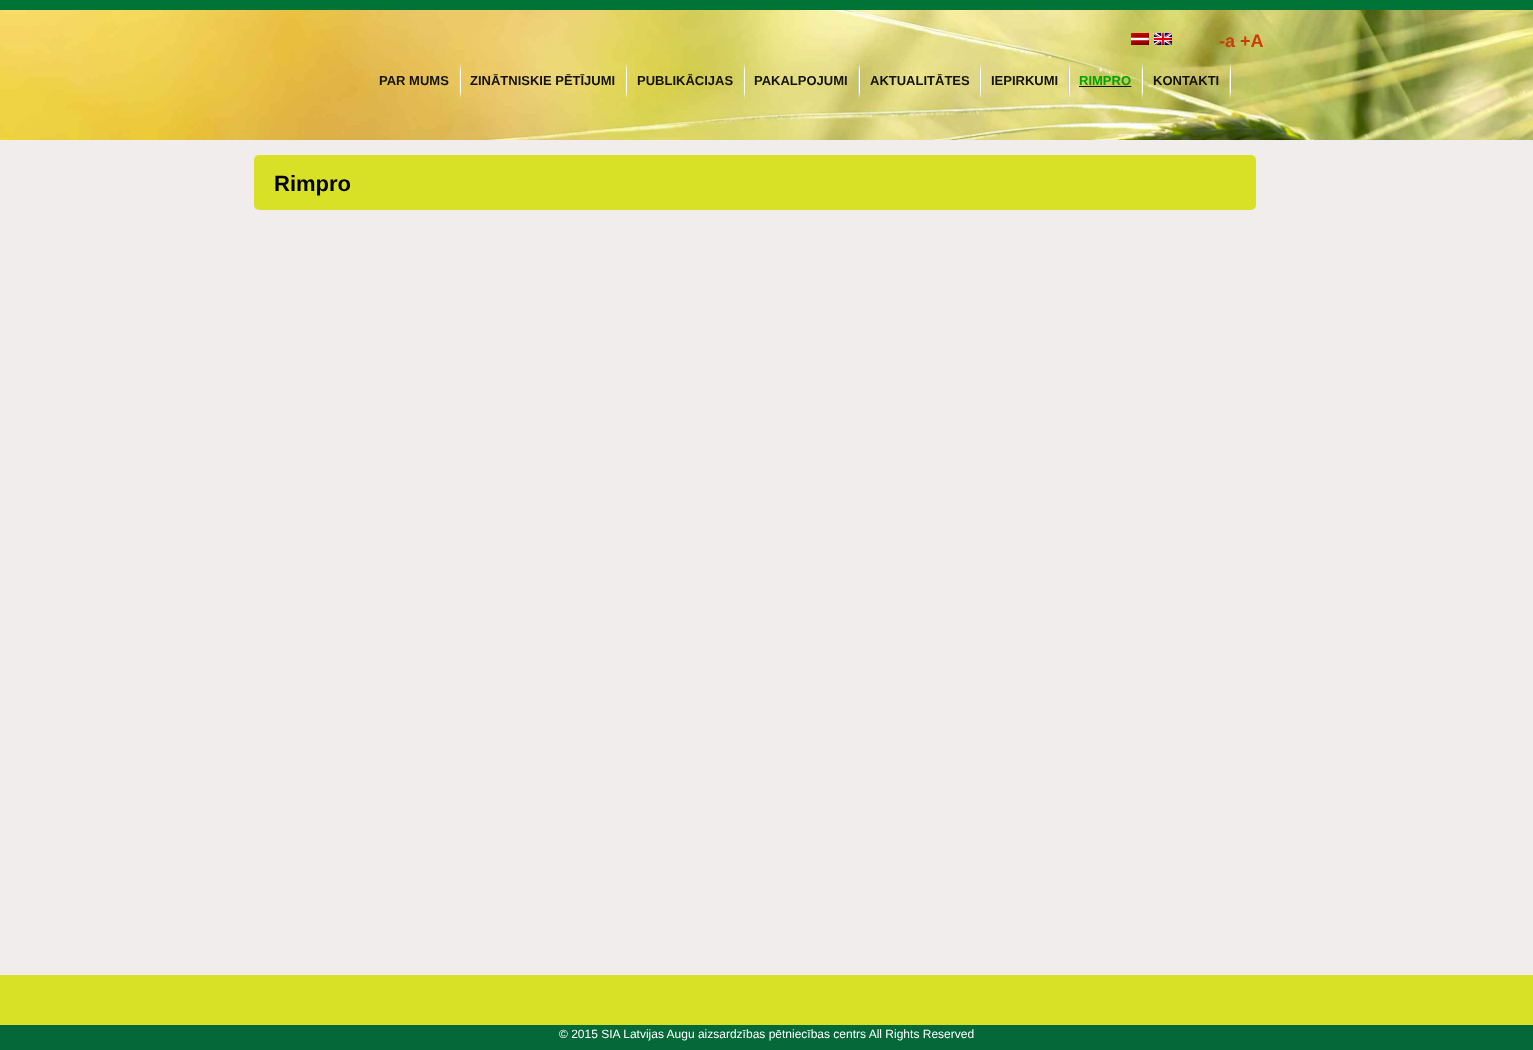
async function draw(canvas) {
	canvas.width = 1533;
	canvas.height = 1050;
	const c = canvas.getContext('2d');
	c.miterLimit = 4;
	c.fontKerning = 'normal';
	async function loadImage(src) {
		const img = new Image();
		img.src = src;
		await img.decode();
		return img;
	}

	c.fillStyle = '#f1eded';
	c.fillRect(0, 0, 1533, 1050);
	c.fillStyle = '#007336';
	c.fillRect(0, 0, 1533, 10);
	c.drawImage(await loadImage('img1.png'), 0, 10, 1533, 130);
	c.drawImage(await loadImage('img2.png'), 1131, 33, 18, 12);
	c.drawImage(await loadImage('img3.png'), 1154, 33, 18, 12);
	c.font = 'bold 18px Liberation Sans';
	c.fillStyle = '#ca3c08';
	c.fillText('-a +A', 1219, 47);
	c.font = 'bold 13px Liberation Sans';
	c.fillStyle = '#141412';
	c.fillText('PAR MUMS', 379, 85);
	c.drawImage(await loadImage('img4.png'), 459, 62, 2, 38);
	c.fillText('ZINĀTNISKIE PĒTĪJUMI', 470, 85);
	c.drawImage(await loadImage('img5.png'), 625, 62, 2, 38);
	c.fillText('PUBLIKĀCIJAS', 637, 85);
	c.drawImage(await loadImage('img6.png'), 743, 62, 2, 38);
	c.fillText('PAKALPOJUMI', 754, 85);
	c.drawImage(await loadImage('img7.png'), 858, 62, 2, 38);
	c.fillText('AKTUALITĀTES', 870, 85);
	c.drawImage(await loadImage('img8.png'), 979, 62, 2, 38);
	c.fillText('IEPIRKUMI', 991, 85);
	c.drawImage(await loadImage('img9.png'), 1068, 62, 2, 38);
	c.fillStyle = '#00a600';
	c.fillText('RIMPRO', 1079, 85);
	c.fillStyle = '#141412';
	c.fillRect(1079, 86, 52, 1);
	c.drawImage(await loadImage('img10.png'), 1131, 62, 12, 38);
	c.fillText('KONTAKTI', 1153, 85);
	c.drawImage(await loadImage('img11.png'), 1229, 62, 2, 38);
	c.fillStyle = '#d9e126';
	c.beginPath();
	c.roundRect(254, 155, 1002, 55, 5);
	c.fill();
	c.font = 'bold 22px Liberation Sans';
	c.fillStyle = '#000';
	c.fillText('Rimpro', 274, 191);
	c.fillStyle = '#d9e126';
	c.fillRect(0, 975, 1533, 50);
	c.fillStyle = '#046838';
	c.fillRect(0, 1025, 1533, 25);
	c.font = '12px Liberation Sans';
	c.fillStyle = '#fff';
	c.fillText('© 2015 SIA Latvijas Augu aizsardzības pētniecības centrs All Rights Reserved', 559, 1038);
}

draw(document.querySelector('canvas'));
